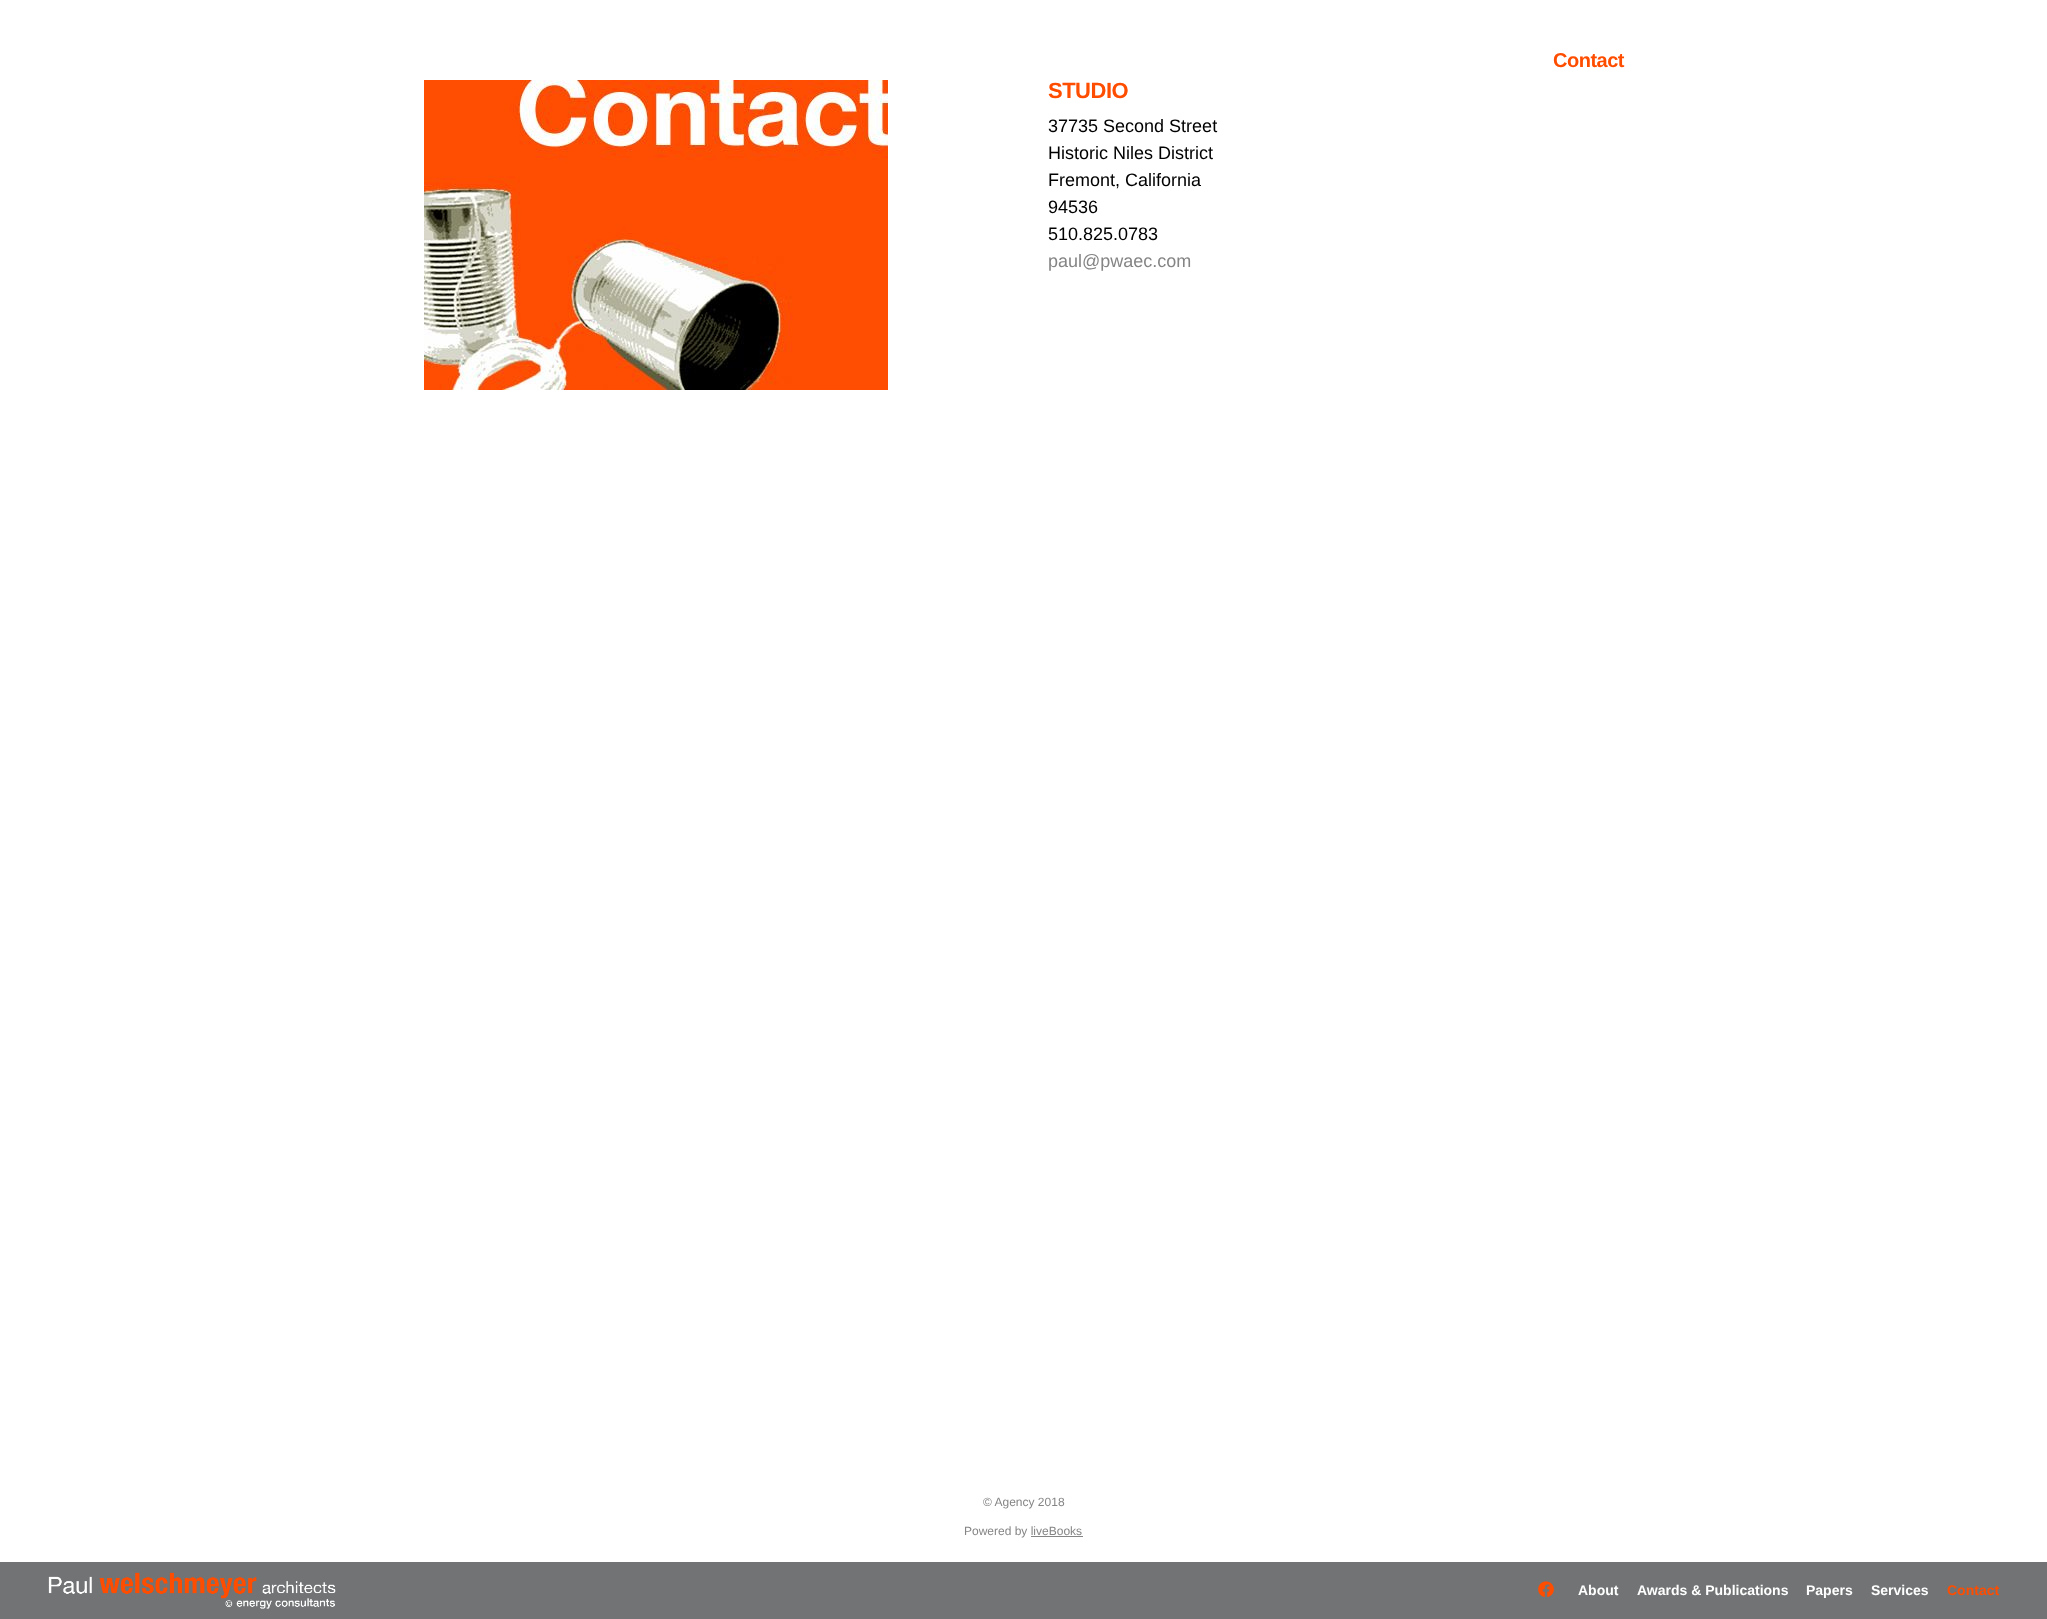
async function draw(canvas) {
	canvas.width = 2047;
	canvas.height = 1619;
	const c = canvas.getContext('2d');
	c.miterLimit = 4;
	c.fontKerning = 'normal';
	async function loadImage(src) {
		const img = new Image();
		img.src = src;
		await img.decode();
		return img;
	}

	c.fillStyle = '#fff';
	c.fillRect(0, 0, 2047, 1619);
	c.letterSpacing = '-0.5px';
	c.font = 'bold 20px Liberation Sans';
	c.fillStyle = '#ff4d00';
	c.fillText('Contact', 1553, 67);
	c.drawImage(await loadImage('img1.png'), 424, 80, 464, 310);
	c.font = 'bold 22px Liberation Sans';
	c.fillText('STUDIO', 1048, 98);
	c.letterSpacing = '0px';
	c.font = '18px Liberation Sans';
	c.fillStyle = '#000';
	for (const [text, x, y] of [
		['37735 Second Street', 1048, 132],
		['Historic Niles District', 1048, 159],
		['Fremont, California', 1048, 186],
		['94536', 1048, 213],
		['510.825.0783', 1048, 240],
	]) {
		c.fillText(text, x, y);
	}
	c.fillStyle = '#858585';
	c.fillText('paul@pwaec.com', 1048, 267);
	c.font = '12px Liberation Sans';
	c.fillText('© Agency 2018', 983, 1506);
	c.fillText('Powered by liveBooks', 964, 1535);
	c.fillRect(1031, 1536, 52, 1);
	c.fillStyle = '#717374';
	c.fillRect(0, 1562, 2047, 57);
	c.drawImage(await loadImage('img2.png'), 48, 1572, 288, 37);
	c.drawImage(await loadImage('img3.png'), 1538, 1581, 16, 16);
	c.font = 'bold 14px Liberation Sans';
	c.fillStyle = '#fff';
	for (const [text, x, y] of [
		['About', 1578, 1595],
		['Awards & Publications', 1637, 1595],
		['Papers', 1806, 1595],
		['Services', 1871, 1595],
	]) {
		c.fillText(text, x, y);
	}
	c.fillStyle = '#ff4d00';
	c.fillText('Contact', 1947, 1595);
}

draw(document.querySelector('canvas'));
